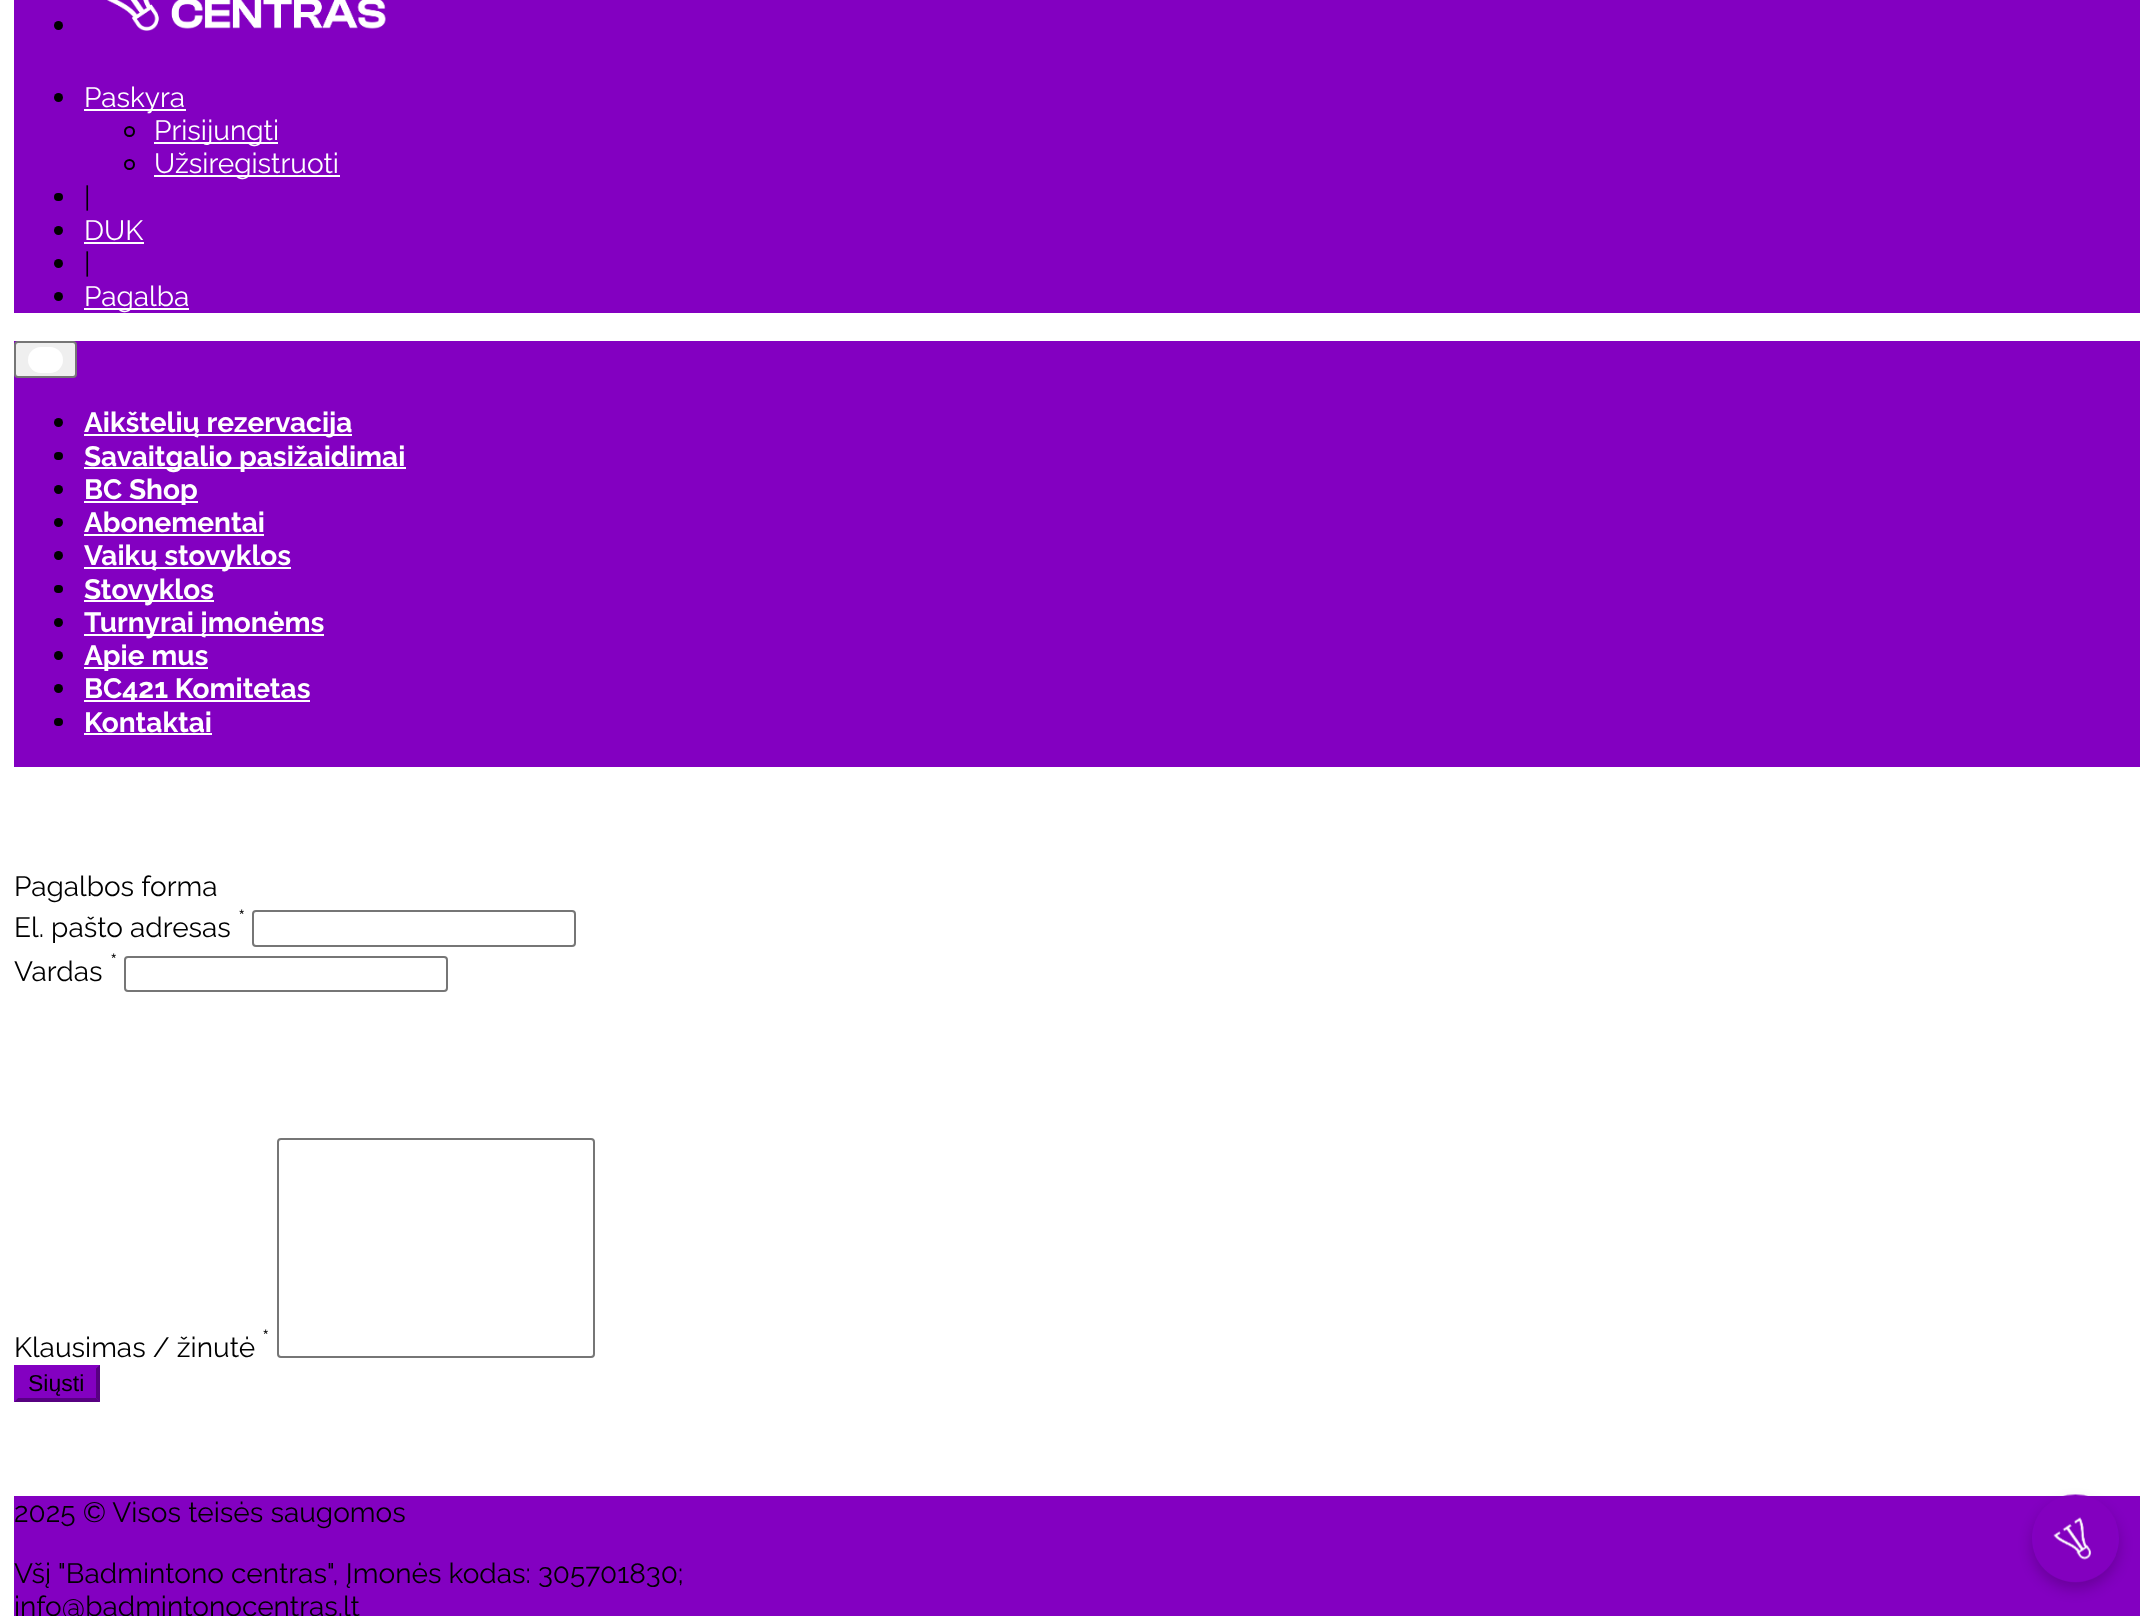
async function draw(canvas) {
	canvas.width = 2153;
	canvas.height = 1616;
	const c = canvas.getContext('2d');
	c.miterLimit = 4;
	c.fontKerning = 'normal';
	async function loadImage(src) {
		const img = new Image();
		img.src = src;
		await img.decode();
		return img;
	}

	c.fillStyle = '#fff';
	c.fillRect(0, 0, 2153, 1616);
	c.fillStyle = '#8300c1';
	c.fillRect(14, 0, 2126, 313);
	c.fillStyle = '#000';
	c.beginPath();
	c.arc(58.5, 25.5, 4.5, 0, 2 * Math.PI);
	c.fill();
	c.drawImage(await loadImage('img1.png'), 107, 0, 279, 31);
	c.beginPath();
	c.arc(58.5, 97.5, 4.5, 0, 2 * Math.PI);
	c.fill();
	c.fillStyle = '#fff';
	c.fillRect(84, 109, 102, 2);
	c.font = '28px Raleway';
	c.fillText('Paskyra', 84, 107);
	c.beginPath();
	c.arc(129.5, 131.5, 4.5, 0, 2 * Math.PI);
	c.strokeStyle = '#000';
	c.lineWidth = 2;
	c.stroke();
	c.fillRect(154, 142, 124, 2);
	c.fillText('Prisijungti', 154, 140);
	c.beginPath();
	c.arc(129.5, 164.5, 4.5, 0, 2 * Math.PI);
	c.stroke();
	c.fillRect(154, 175, 186, 2);
	c.fillText('Užsiregistruoti', 154, 173);
	c.fillStyle = '#000';
	c.beginPath();
	c.roundRect(54, 193, 9, 8, 4);
	c.fill();
	c.fillText('|', 84, 207);
	c.beginPath();
	c.arc(58.5, 230.5, 4.5, 0, 2 * Math.PI);
	c.fill();
	c.fillStyle = '#fff';
	c.fillText('DUK', 84, 240);
	c.fillRect(84, 242, 60, 2);
	c.fillStyle = '#000';
	c.beginPath();
	c.arc(58.5, 263.5, 4.5, 0, 2 * Math.PI);
	c.fill();
	c.fillText('|', 84, 273);
	c.beginPath();
	c.arc(58.5, 296.5, 4.5, 0, 2 * Math.PI);
	c.fill();
	c.fillStyle = '#fff';
	c.fillRect(84, 308, 105, 2);
	c.fillText('Pagalba', 84, 306);
	c.fillStyle = '#8300c1';
	c.fillRect(14, 341, 2126, 426);
	c.fillStyle = '#efefef';
	c.beginPath();
	c.roundRect(15, 342, 61, 35, 3);
	c.fill();
	c.strokeStyle = '#767676';
	c.stroke();
	c.fillStyle = '#fff';
	c.beginPath();
	c.roundRect(28, 347, 35, 26, 13);
	c.fill();
	c.fillStyle = '#000';
	c.beginPath();
	c.arc(58.5, 422.5, 4.5, 0, 2 * Math.PI);
	c.fill();
	c.fillStyle = '#fff';
	c.fillRect(84, 434, 268, 2);
	c.font = 'bold 28px Raleway';
	c.fillText('Aikštelių rezervacija', 84, 432);
	c.fillStyle = '#000';
	c.beginPath();
	c.roundRect(54, 452, 9, 8, 4);
	c.fill();
	c.fillStyle = '#fff';
	c.fillRect(84, 467, 322, 2);
	c.fillText('Savaitgalio pasižaidimai', 84, 466);
	c.fillStyle = '#000';
	c.beginPath();
	c.arc(58.5, 489.5, 4.5, 0, 2 * Math.PI);
	c.fill();
	c.fillStyle = '#fff';
	c.fillRect(84, 501, 114, 2);
	c.fillText('BC Shop', 84, 499);
	c.fillStyle = '#000';
	c.beginPath();
	c.arc(58.5, 522.5, 4.5, 0, 2 * Math.PI);
	c.fill();
	c.fillStyle = '#fff';
	c.fillText('Abonementai', 84, 532);
	c.fillRect(84, 534, 180, 2);
	c.fillStyle = '#000';
	c.beginPath();
	c.arc(58.5, 555.5, 4.5, 0, 2 * Math.PI);
	c.fill();
	c.fillStyle = '#fff';
	c.fillRect(84, 567, 207, 2);
	c.fillText('Vaikų stovyklos', 84, 565);
	c.fillStyle = '#000';
	c.beginPath();
	c.roundRect(54, 585, 9, 8, 4);
	c.fill();
	c.fillStyle = '#fff';
	c.fillRect(84, 600, 130, 2);
	c.fillText('Stovyklos', 84, 599);
	c.fillStyle = '#000';
	c.beginPath();
	c.arc(58.5, 622.5, 4.5, 0, 2 * Math.PI);
	c.fill();
	c.fillStyle = '#fff';
	c.fillRect(84, 634, 240, 2);
	c.fillText('Turnyrai įmonėms', 84, 632);
	c.fillStyle = '#000';
	c.beginPath();
	c.arc(58.5, 655.5, 4.5, 0, 2 * Math.PI);
	c.fill();
	c.fillStyle = '#fff';
	c.fillRect(84, 667, 124, 2);
	c.fillText('Apie mus', 84, 665);
	c.fillStyle = '#000';
	c.beginPath();
	c.arc(58.5, 688.5, 4.5, 0, 2 * Math.PI);
	c.fill();
	c.fillStyle = '#fff';
	c.fillRect(84, 700, 226, 2);
	c.fillText('BC421 Komitetas', 84, 698);
	c.fillStyle = '#000';
	c.beginPath();
	c.roundRect(54, 718, 9, 8, 4);
	c.fill();
	c.fillStyle = '#fff';
	c.fillText('Kontaktai', 84, 732);
	c.fillRect(84, 733, 128, 2);
	c.font = '28px Raleway';
	c.fillStyle = '#000';
	c.fillText('Pagalbos forma', 14, 896);
	c.fillText('El. pašto adresas', 14, 937);
	c.font = '23px Raleway';
	c.fillText('*', 238, 926);
	c.beginPath();
	c.roundRect(253, 911, 322, 35, 3);
	c.stroke();
	c.fillText('*', 110, 970);
	c.font = '28px Raleway';
	c.fillText('Vardas', 14, 981);
	c.beginPath();
	c.roundRect(125, 957, 322, 34, 3);
	c.stroke();
	c.font = '23px Raleway';
	c.fillText('*', 262, 1346);
	c.beginPath();
	c.roundRect(278, 1139, 316, 218, 3);
	c.stroke();
	c.font = '28px Raleway';
	c.fillText('Klausimas / žinutė', 14, 1357);
	c.fillStyle = '#8300c1';
	c.fillRect(14, 1365, 86, 37);
	c.fillStyle = '#570081';
	c.beginPath();
	c.moveTo(100, 1365);
	c.lineTo(100, 1402);
	c.lineTo(96, 1398);
	c.lineTo(96, 1368.5);
	c.closePath();
	c.fill();
	c.beginPath();
	c.moveTo(100, 1402);
	c.lineTo(14, 1402);
	c.lineTo(18, 1398);
	c.lineTo(96, 1398);
	c.closePath();
	c.fill();
	c.fillStyle = '#8300c1';
	c.beginPath();
	c.moveTo(14, 1402);
	c.lineTo(14, 1365);
	c.lineTo(17.5, 1368.5);
	c.lineTo(17.5, 1398);
	c.closePath();
	c.fill();
	c.font = '23px Liberation Sans';
	c.fillStyle = '#000';
	c.fillText('Siųsti', 28, 1391);
	c.fillStyle = '#8300c1';
	c.fillRect(14, 1496, 2126, 120);
	c.font = '28px Raleway';
	c.fillStyle = '#000';
	for (const [text, x, y] of [
		['2025 © Visos teisės saugomos', 14, 1522],
		['Všį "Badmintono centras", Įmonės kodas: 305701830;', 14, 1583],
		['info@badmintonocentras.lt', 14, 1616],
	]) {
		c.fillText(text, x, y);
	}
	c.save();
	c.beginPath();
	c.moveTo(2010, 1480);
	c.lineTo(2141, 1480);
	c.lineTo(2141, 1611);
	c.lineTo(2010, 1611);
	c.closePath();
	c.moveTo(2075.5, 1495);
	c.bezierCurveTo(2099.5, 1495, 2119, 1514.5, 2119, 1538.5);
	c.bezierCurveTo(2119, 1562.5, 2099.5, 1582, 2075.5, 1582);
	c.bezierCurveTo(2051.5, 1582, 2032, 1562.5, 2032, 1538.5);
	c.bezierCurveTo(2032, 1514.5, 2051.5, 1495, 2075.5, 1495);
	c.closePath();
	c.clip('evenodd');
	c.fillStyle = '#00000033';
	c.filter = 'blur(7px)';
	c.beginPath();
	c.roundRect(2032, 1502, 87, 87, 43.5);
	c.fill();
	c.filter = 'none';
	c.restore();
	c.drawImage(await loadImage('img2.png'), 2035, 1494, 81, 89);
}

draw(document.querySelector('canvas'));
